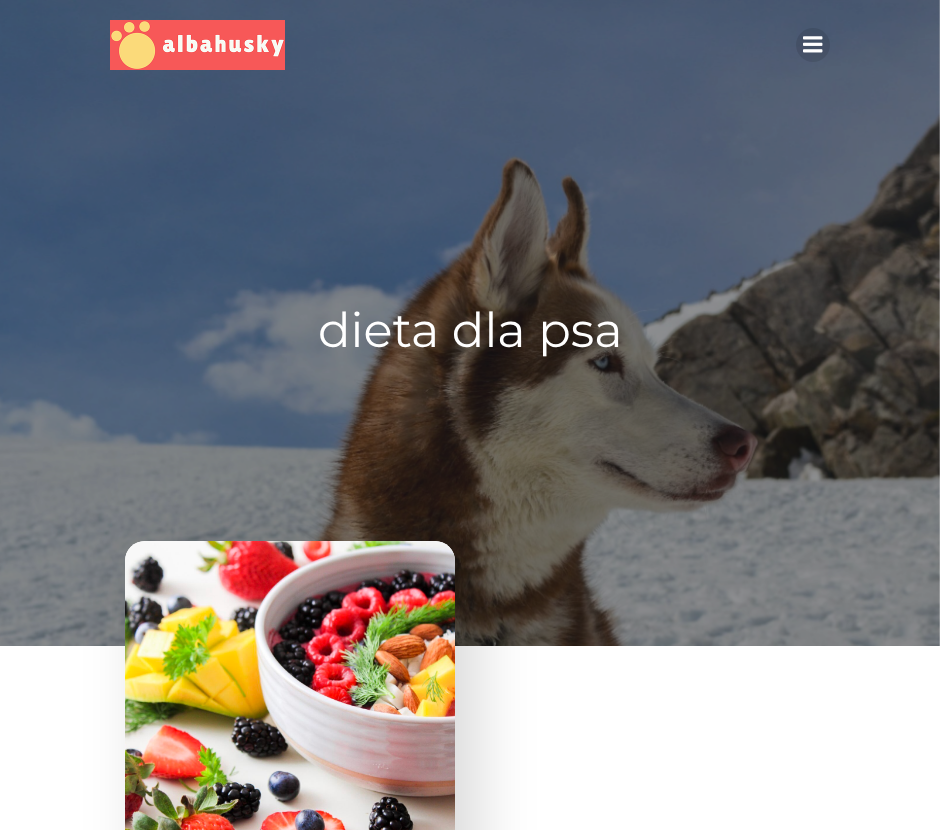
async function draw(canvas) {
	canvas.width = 940;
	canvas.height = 830;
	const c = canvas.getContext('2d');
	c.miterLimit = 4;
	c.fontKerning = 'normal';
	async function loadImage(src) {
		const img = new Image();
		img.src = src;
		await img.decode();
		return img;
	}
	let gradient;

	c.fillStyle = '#fff';
	c.fillRect(0, 0, 940, 830);
	c.drawImage(await loadImage('img3.png'), 0, 0, 940, 646);
	c.drawImage(await loadImage('img1.png'), 110, 20, 175, 50);
	c.fillStyle = '#0000001a';
	c.beginPath();
	c.arc(813, 45, 17, 0, 2 * Math.PI);
	c.fill();
	c.drawImage(await loadImage('img2.png'), 803, 36, 20, 17);
	c.font = '48px Montserrat';
	c.fillStyle = '#fff';
	c.fillText('dieta dla psa', 318, 347);
	c.fillStyle = '#00000026';
	c.filter = 'blur(30px)';
	c.beginPath();
	c.roundRect(143, 559, 334, 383, 22);
	c.fill();
	c.filter = 'none';
	gradient = c.createLinearGradient(56, 589, 524, 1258);
	gradient.addColorStop(0.42, '#fff');
	gradient.addColorStop(1, '#efefef');
	c.fillStyle = gradient;
	c.beginPath();
	c.roundRect(125, 541, 330, 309, 20);
	c.fill();
	c.drawImage(await loadImage('img4.png'), 125, 541, 330, 289);
}

draw(document.querySelector('canvas'));
